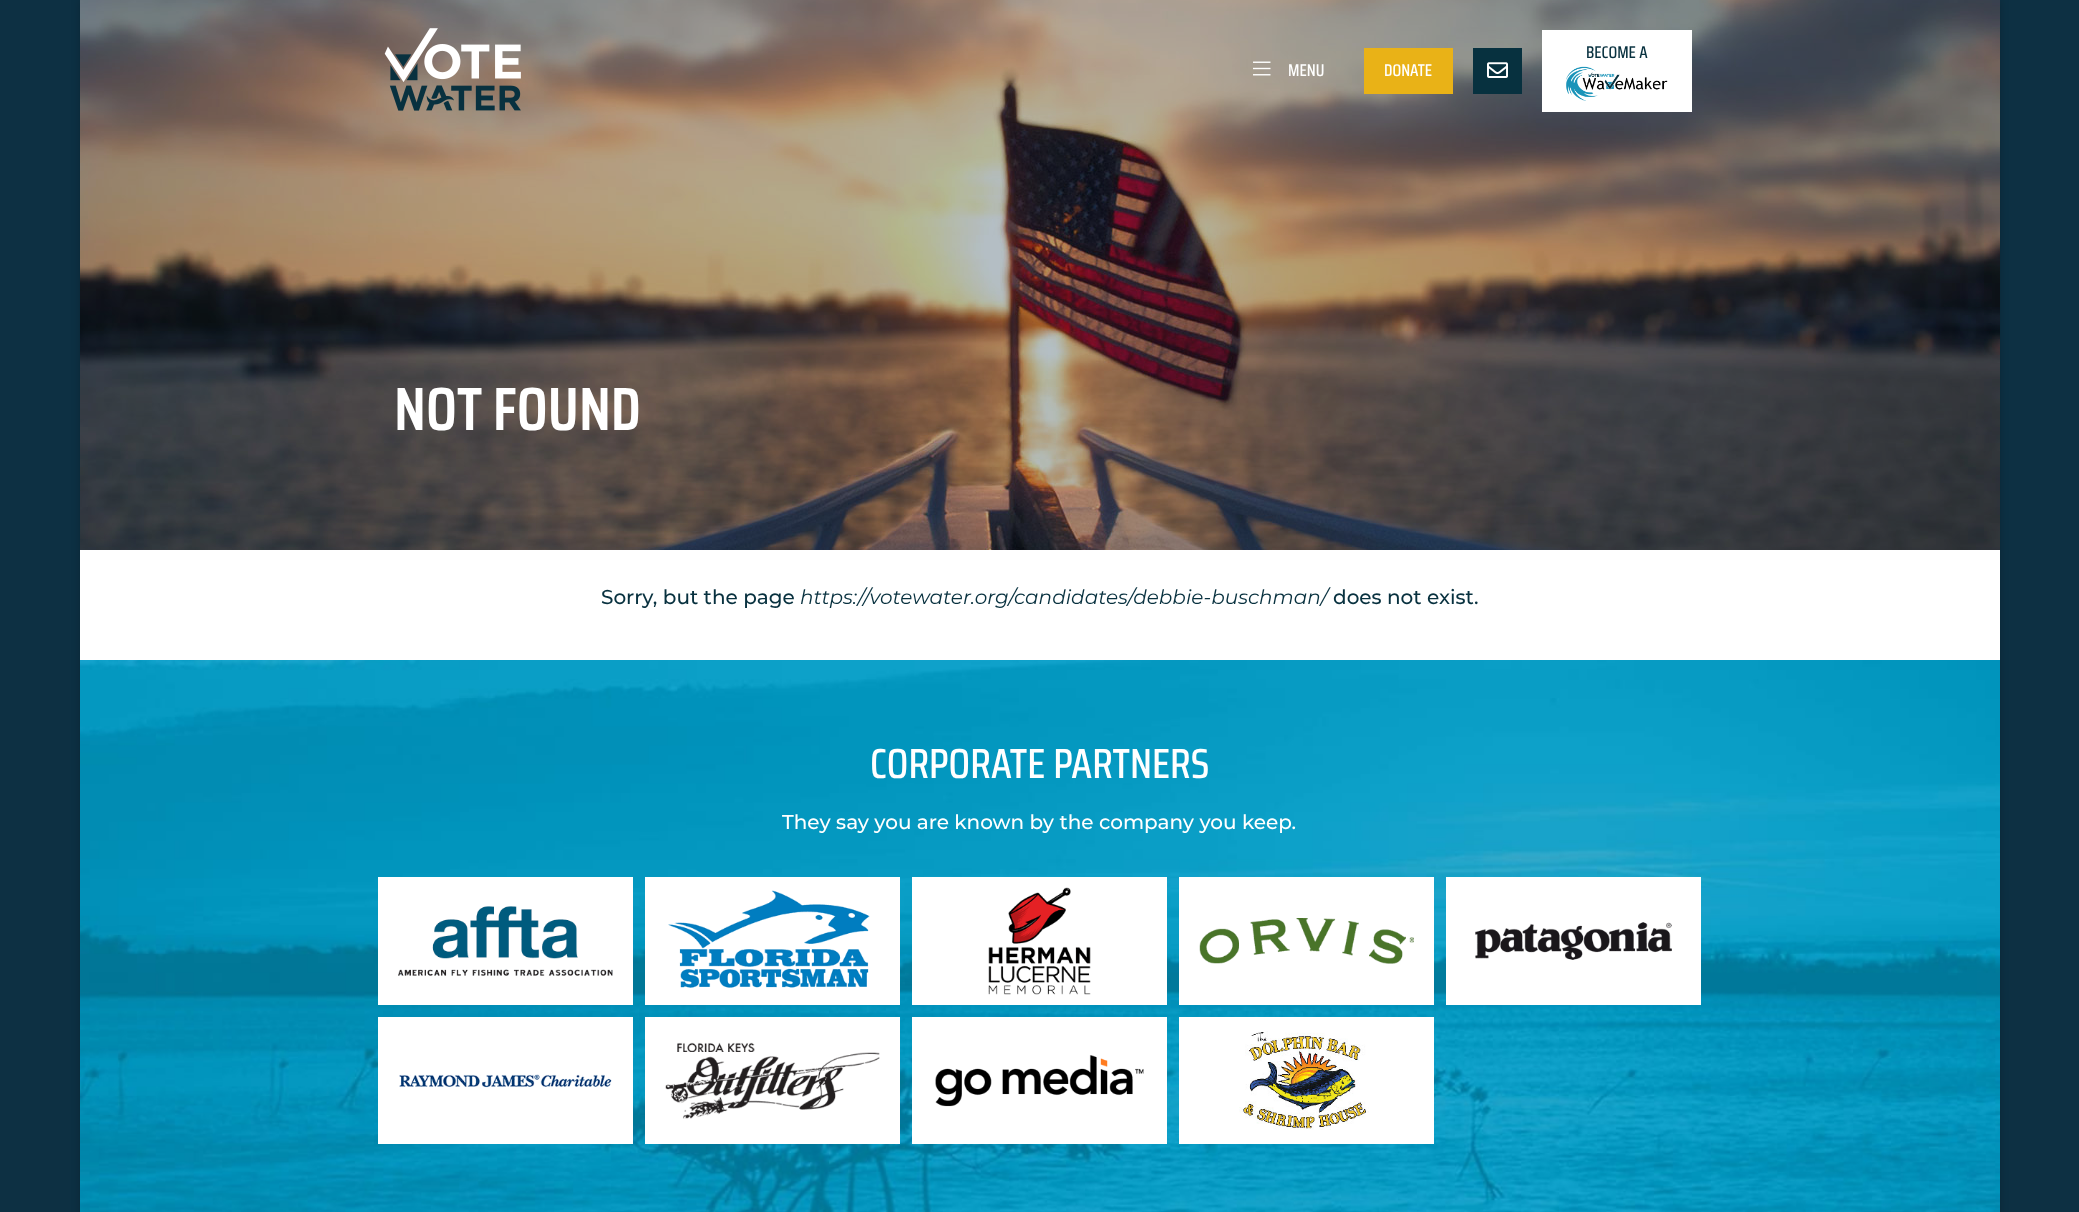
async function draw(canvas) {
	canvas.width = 2079;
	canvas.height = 1212;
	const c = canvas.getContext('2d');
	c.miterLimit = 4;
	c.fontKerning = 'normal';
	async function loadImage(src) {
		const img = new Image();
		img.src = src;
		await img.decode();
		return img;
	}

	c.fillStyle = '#0d3043';
	c.fillRect(0, 0, 2079, 1212);
	c.fillStyle = '#00000033';
	c.filter = 'blur(4px)';
	c.beginPath();
	c.rect(80, 0, 1920, 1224);
	c.fill();
	c.filter = 'none';
	c.fillStyle = '#fff';
	c.fillRect(80, 550, 1920, 110);
	c.drawImage(await loadImage('img5.png'), 80, 0, 1920, 550);
	c.drawImage(await loadImage('img1.png'), 384, 28, 137, 83);
	c.drawImage(await loadImage('img2.png'), 1253, 61, 18, 15);
	c.font = '500 17px Saira Condensed';
	c.fillText('MENU', 1288, 76);
	c.fillStyle = '#e9b217';
	c.fillRect(1364, 48, 89, 46);
	c.fillStyle = '#fff';
	c.fillText('DONATE', 1384, 76);
	c.fillStyle = '#07313f';
	c.fillRect(1473, 48, 49, 46);
	c.drawImage(await loadImage('img3.png'), 1487, 62, 21, 16);
	c.fillStyle = '#fff';
	c.fillRect(1542, 30, 150, 82);
	c.fillStyle = '#08313f';
	c.fillText('BECOME A', 1586, 58);
	c.drawImage(await loadImage('img4.png'), 1565, 66, 103, 35);
	c.font = '600 61px Saira Condensed';
	c.fillStyle = '#fff';
	c.fillText('NOT FOUND', 394, 430);
	c.font = '500 20px Montserrat';
	c.fillStyle = '#08313f';
	c.fillText('Sorry, but the page', 601, 604);
	c.font = 'italic 100 20px Montserrat';
	c.fillText('https://votewater.org/candidates/debbie-buschman/', 800, 604);
	c.font = '500 20px Montserrat';
	c.fillText('does not exist.', 1333, 604);
	c.drawImage(await loadImage('img6.png'), 80, 660, 1920, 552);
	c.font = '500 42px Saira Condensed';
	c.fillStyle = '#fff';
	c.fillText('CORPORATE PARTNERS', 870, 778);
	c.font = '500 20px Montserrat';
	c.fillText('They say you are known by the company you keep.', 782, 829);
	c.fillRect(378, 877, 255, 128);
	c.drawImage(await loadImage('img7.png'), 398, 906, 215, 70);
	c.fillRect(645, 877, 255, 128);
	c.drawImage(await loadImage('img8.png'), 668, 890, 202, 98);
	c.fillRect(912, 877, 255, 128);
	c.drawImage(await loadImage('img9.png'), 988, 887, 103, 108);
	c.fillRect(1179, 877, 255, 128);
	c.drawImage(await loadImage('img10.png'), 1199, 918, 215, 46);
	c.fillRect(1446, 877, 255, 128);
	c.drawImage(await loadImage('img11.png'), 1475, 922, 197, 38);
	c.fillRect(378, 1017, 255, 127);
	c.drawImage(await loadImage('img12.png'), 399, 1074, 213, 14);
	c.fillRect(645, 1017, 255, 127);
	c.drawImage(await loadImage('img13.png'), 665, 1042, 215, 77);
	c.fillRect(912, 1017, 255, 127);
	c.drawImage(await loadImage('img14.png'), 935, 1055, 209, 52);
	c.fillRect(1179, 1017, 255, 127);
	c.drawImage(await loadImage('img15.png'), 1239, 1031, 130, 99);
}

draw(document.querySelector('canvas'));
